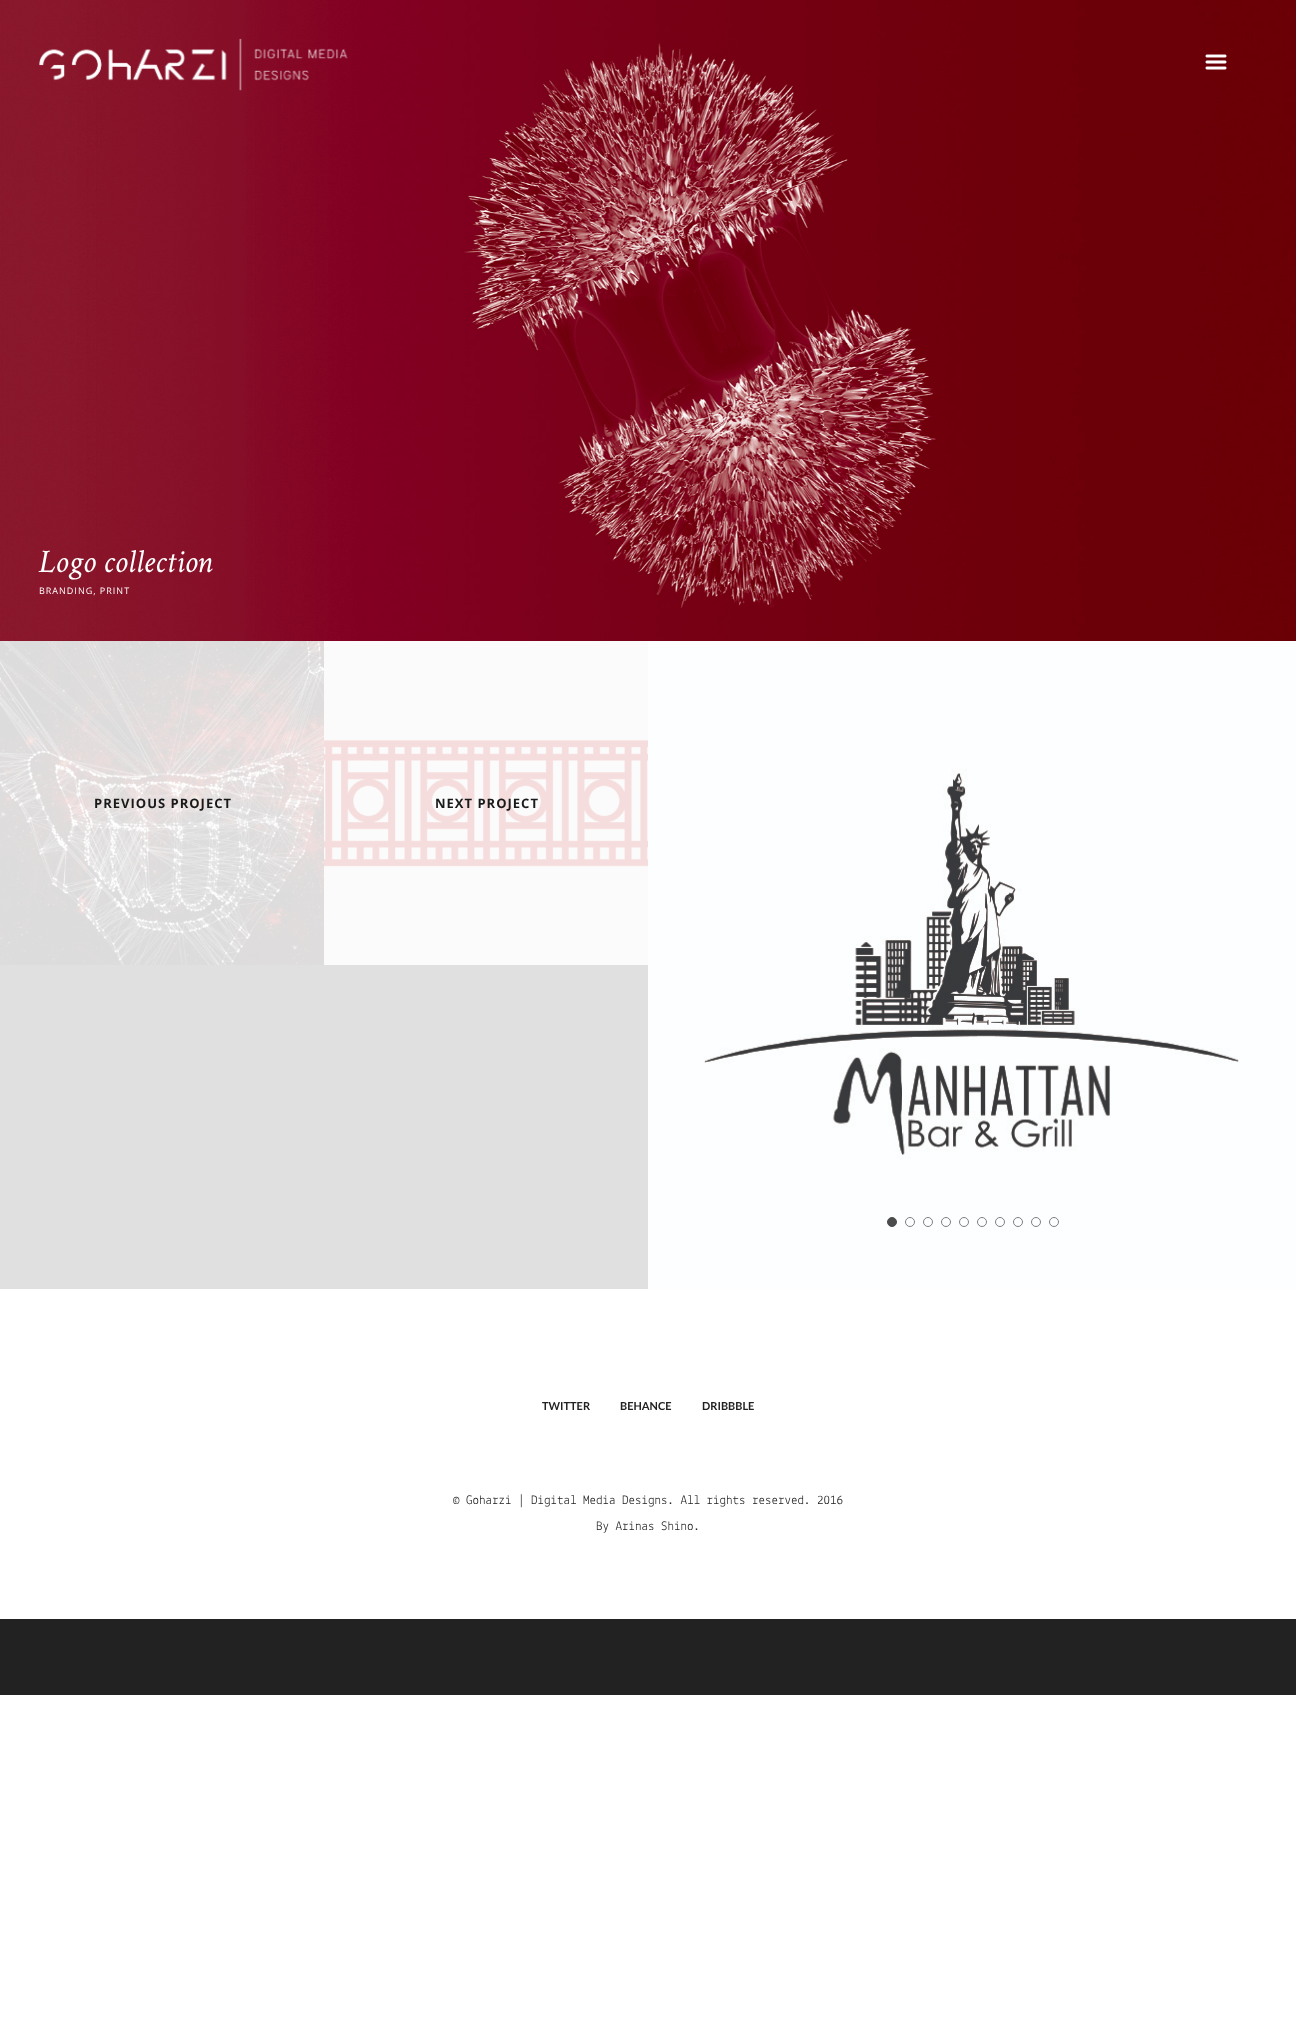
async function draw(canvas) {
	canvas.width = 1296;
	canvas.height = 2036;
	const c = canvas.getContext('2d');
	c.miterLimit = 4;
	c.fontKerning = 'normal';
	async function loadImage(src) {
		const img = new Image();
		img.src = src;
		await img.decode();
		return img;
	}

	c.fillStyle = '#fff';
	c.fillRect(0, 0, 1296, 2036);
	c.fillStyle = '#222';
	c.fillRect(0, 0, 1296, 1695);
	c.drawImage(await loadImage('img3.png'), 0, 0, 1296, 641);
	c.drawImage(await loadImage('img1.png'), 39, 38, 309, 53);
	c.drawImage(await loadImage('img2.png'), 1205, 54, 22, 16);
	c.font = 'italic 33px Crimson Text';
	c.fillStyle = '#fff';
	c.fillText('Logo collection', 39, 572);
	c.letterSpacing = '1px';
	c.font = '9px Open Sans';
	c.fillText('BRANDING, PRINT', 39, 594);
	c.fillStyle = '#e0e0e0';
	c.fillRect(0, 965, 648, 324);
	c.drawImage(await loadImage('img4.png'), 0, 641, 324, 324);
	c.font = 'bold 13px Open Sans';
	c.fillStyle = '#1a1a1a';
	c.fillText('PREVIOUS PROJECT', 94, 808);
	c.drawImage(await loadImage('img5.png'), 324, 641, 324, 324);
	c.fillText('NEXT PROJECT', 435, 808);
	c.drawImage(await loadImage('img6.png'), 648, 641, 648, 648);
	c.fillStyle = '#4c4c4d';
	c.beginPath();
	c.arc(892, 1222, 4.5, 0, 2 * Math.PI);
	c.fill();
	c.strokeStyle = '#4c4c4d';
	c.stroke();
	c.beginPath();
	c.arc(910, 1222, 4.5, 0, 2 * Math.PI);
	c.strokeStyle = '#7e7f80';
	c.stroke();
	c.beginPath();
	c.arc(928, 1222, 4.5, 0, 2 * Math.PI);
	c.stroke();
	c.beginPath();
	c.arc(946, 1222, 4.5, 0, 2 * Math.PI);
	c.stroke();
	c.beginPath();
	c.arc(964, 1222, 4.5, 0, 2 * Math.PI);
	c.stroke();
	c.beginPath();
	c.arc(982, 1222, 4.5, 0, 2 * Math.PI);
	c.stroke();
	c.beginPath();
	c.arc(1000, 1222, 4.5, 0, 2 * Math.PI);
	c.stroke();
	c.beginPath();
	c.arc(1018, 1222, 4.5, 0, 2 * Math.PI);
	c.stroke();
	c.beginPath();
	c.arc(1036, 1222, 4.5, 0, 2 * Math.PI);
	c.stroke();
	c.beginPath();
	c.arc(1054, 1222, 4.5, 0, 2 * Math.PI);
	c.stroke();
	c.fillStyle = '#fff';
	c.fillRect(0, 1289, 1296, 330);
	c.letterSpacing = '0px';
	c.font = 'bold 11px Lato';
	c.fillStyle = '#222';
	for (const [text, x, y] of [
		['TWITTER', 542, 1410],
		['BEHANCE', 620, 1410],
		['DRIBBBLE', 702, 1410],
	]) {
		c.fillText(text, x, y);
	}
	c.font = '13px Lekton';
	c.fillText('© Goharzi | Digital Media Designs. All rights reserved. 2016', 453, 1504);
	c.fillText('By Arinas Shino.', 596, 1530);
}

draw(document.querySelector('canvas'));
